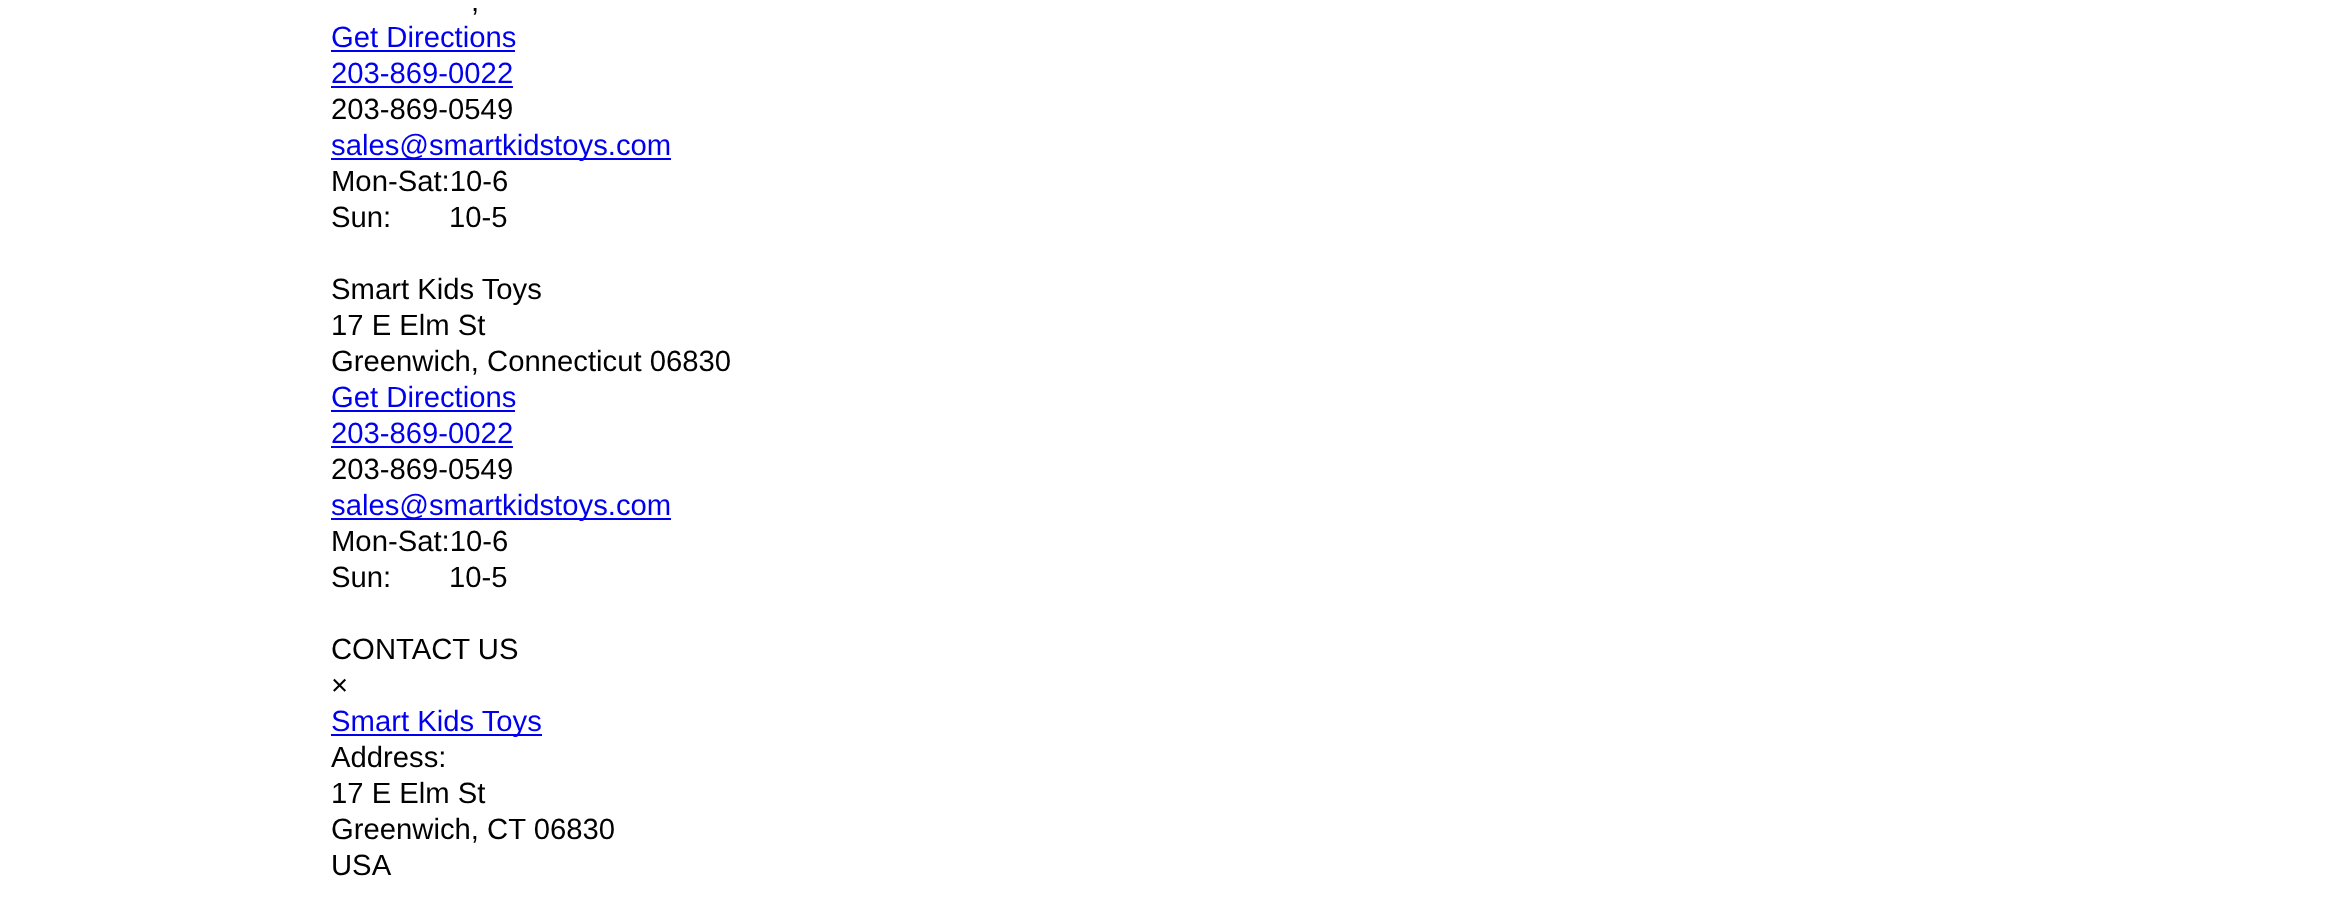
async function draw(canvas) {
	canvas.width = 2349;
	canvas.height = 902;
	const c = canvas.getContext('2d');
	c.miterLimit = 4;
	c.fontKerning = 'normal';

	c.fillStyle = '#fff';
	c.fillRect(0, 0, 2349, 902);
	c.font = '29.25px Liberation Sans';
	c.fillStyle = '#000';
	c.fillText(',', 471, 11);
	c.fillStyle = '#00e';
	c.fillText('Get Directions', 331, 47);
	c.fillRect(331, 50, 184, 2);
	c.fillText('203-869-0022', 331, 83);
	c.fillRect(331, 86, 182, 2);
	c.fillStyle = '#000';
	c.fillText('203-869-0549', 331, 119);
	c.fillStyle = '#00e';
	c.fillRect(331, 158, 340, 2);
	c.fillText('sales@smartkidstoys.com', 331, 155);
	c.fillStyle = '#000';
	for (const [text, x, y] of [
		['Mon-Sat:10-6', 331, 191],
		['Sun:', 331, 227],
		['10-5', 449, 227],
		['Smart Kids Toys', 331, 299],
		['17 E Elm St', 331, 335],
		['Greenwich, Connecticut 06830', 331, 371],
	]) {
		c.fillText(text, x, y);
	}
	c.fillStyle = '#00e';
	c.fillText('Get Directions', 331, 407);
	c.fillRect(331, 410, 184, 2);
	c.fillText('203-869-0022', 331, 443);
	c.fillRect(331, 446, 182, 2);
	c.fillStyle = '#000';
	c.fillText('203-869-0549', 331, 479);
	c.fillStyle = '#00e';
	c.fillRect(331, 518, 340, 2);
	c.fillText('sales@smartkidstoys.com', 331, 515);
	c.fillStyle = '#000';
	for (const [text, x, y] of [
		['Mon-Sat:10-6', 331, 551],
		['Sun:', 331, 587],
		['10-5', 449, 587],
		['CONTACT US', 331, 659],
		['×', 331, 695],
	]) {
		c.fillText(text, x, y);
	}
	c.fillStyle = '#00e';
	c.fillRect(331, 734, 211, 2);
	c.fillText('Smart Kids Toys', 331, 731);
	c.fillStyle = '#000';
	for (const [text, x, y] of [
		['Address:', 331, 767],
		['17 E Elm St', 331, 803],
		['Greenwich, CT 06830', 331, 839],
		['USA', 331, 875],
	]) {
		c.fillText(text, x, y);
	}
}

draw(document.querySelector('canvas'));
